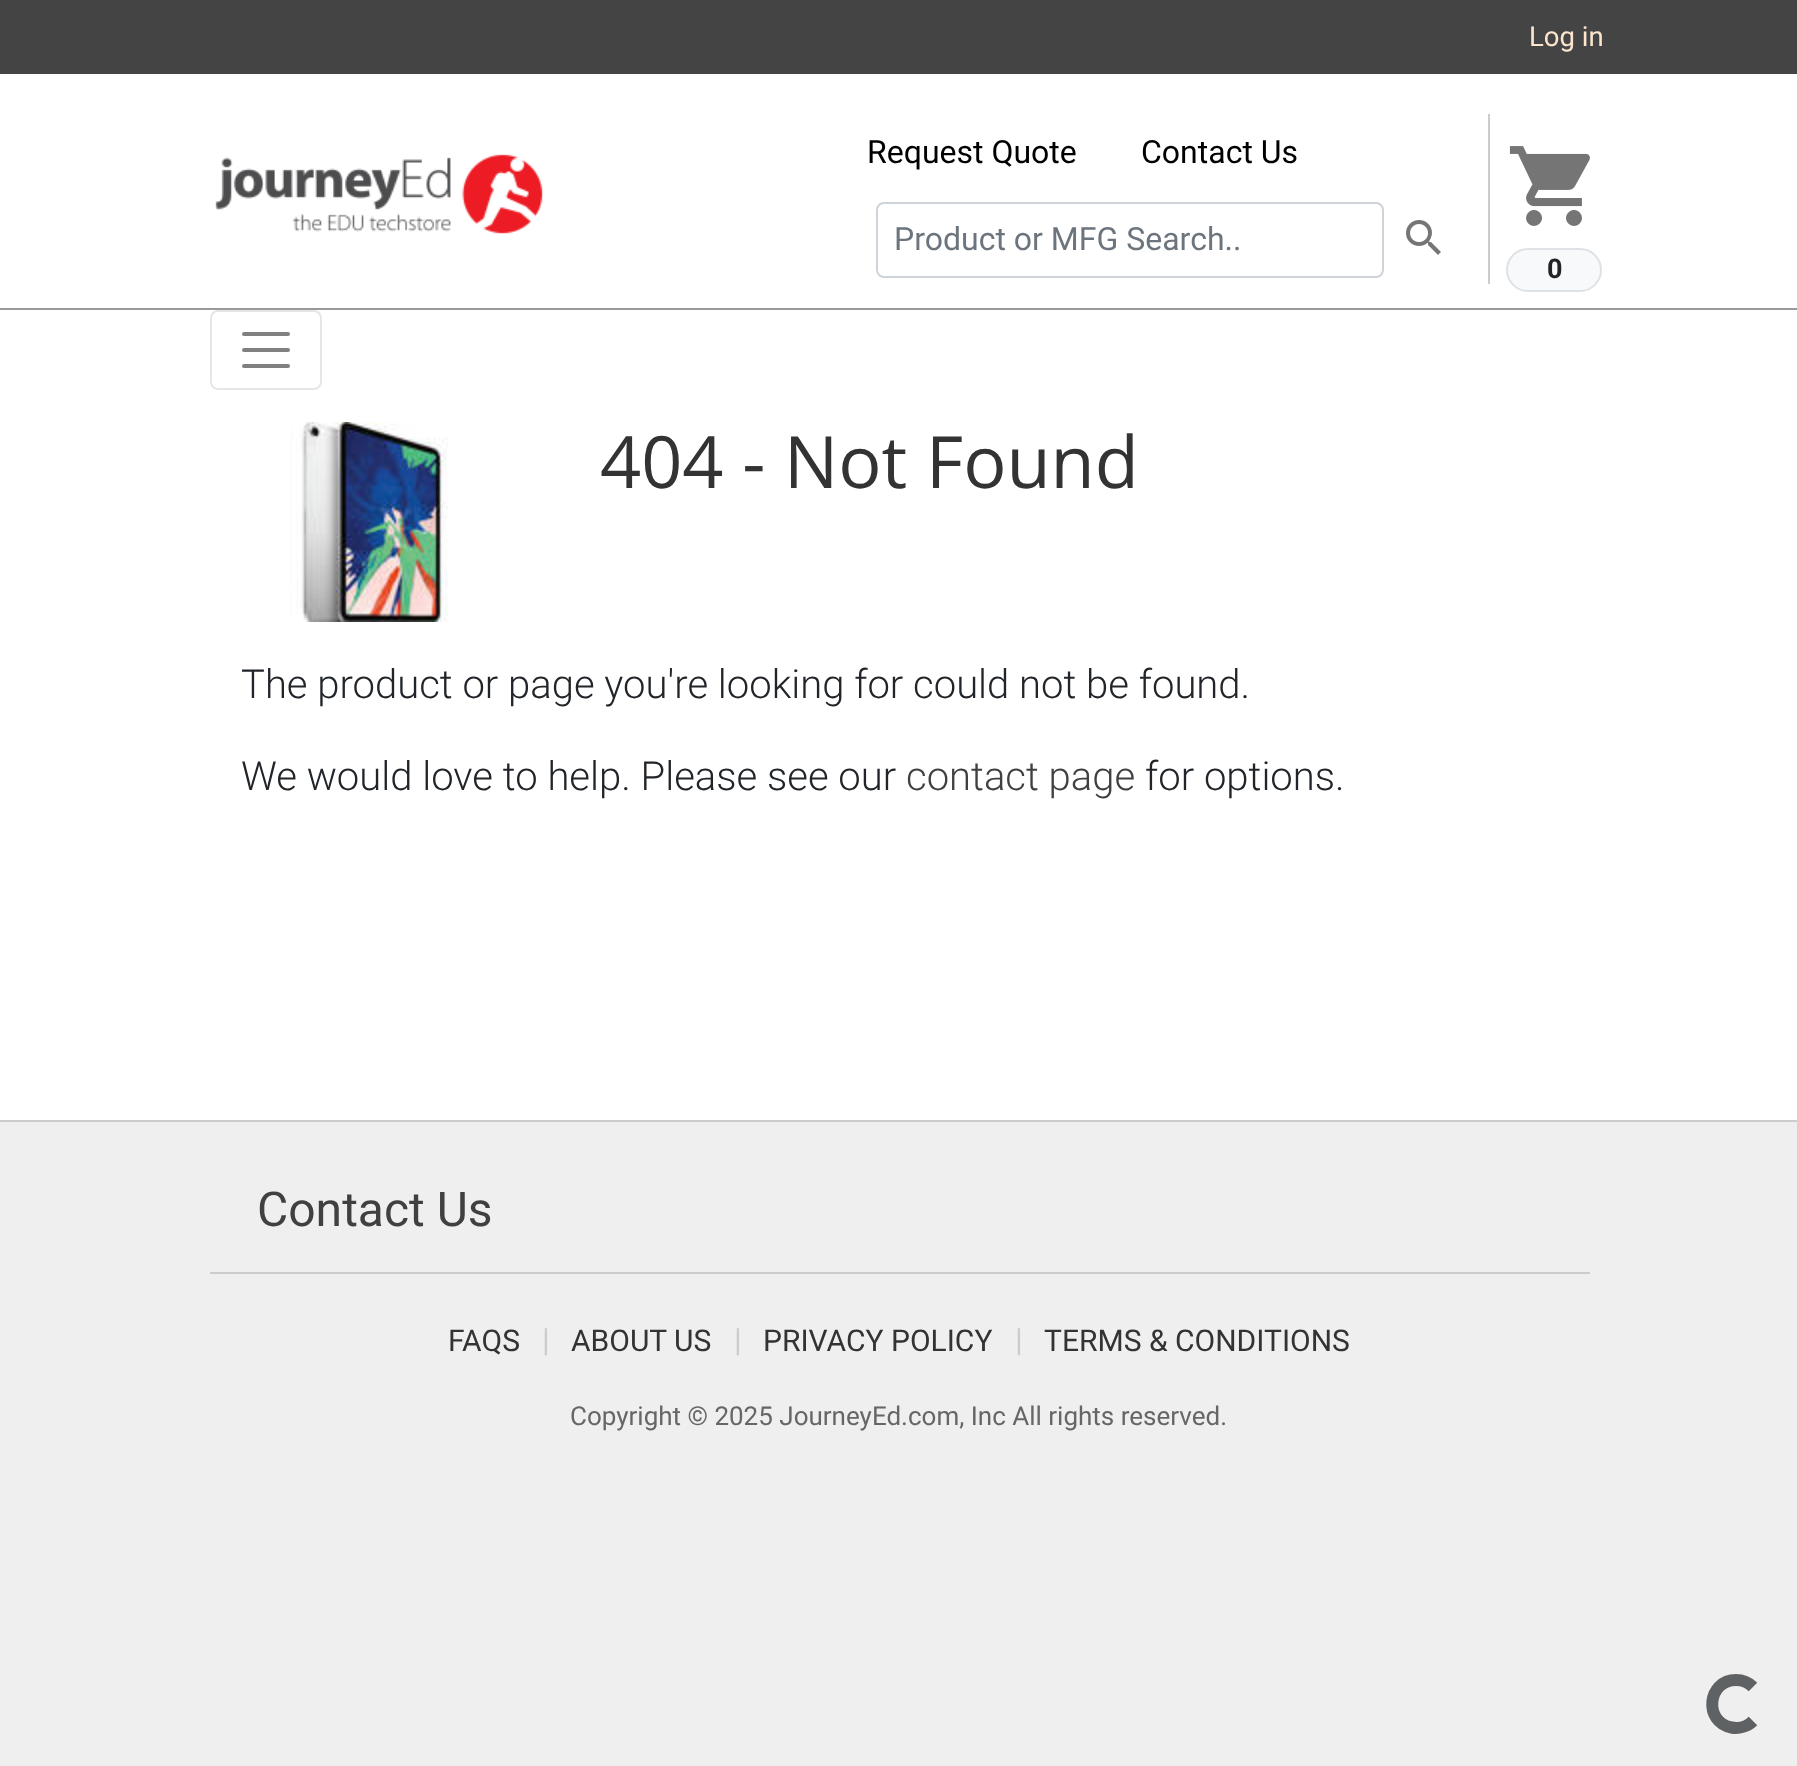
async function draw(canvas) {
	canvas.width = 1797;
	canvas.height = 1766;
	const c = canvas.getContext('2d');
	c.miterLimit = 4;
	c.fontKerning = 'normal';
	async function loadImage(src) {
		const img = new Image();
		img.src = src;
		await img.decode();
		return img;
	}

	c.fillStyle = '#fff';
	c.fillRect(0, 0, 1797, 1766);
	c.fillStyle = '#444';
	c.fillRect(0, 0, 1797, 74);
	c.font = '27.5px Roboto';
	c.fillStyle = '#fce5cd';
	c.fillText('Log in', 1529, 46);
	c.drawImage(await loadImage('img1.png'), 215, 154, 328, 80);
	c.fillStyle = '#ccc';
	c.fillRect(1488, 114, 2, 170);
	c.font = '32px Roboto';
	c.fillStyle = '#000';
	c.fillText('Request Quote', 867, 163);
	c.fillText('Contact Us', 1141, 163);
	c.beginPath();
	c.roundRect(877, 203, 506, 74, 7);
	c.strokeStyle = '#ced4da';
	c.lineWidth = 2;
	c.stroke();
	c.fillStyle = '#6c757d';
	c.fillText('Product or MFG Search..', 894, 250);
	c.drawImage(await loadImage('img2.png'), 1406, 220, 35, 35);
	c.drawImage(await loadImage('img3.png'), 1509, 146, 81, 80);
	c.fillStyle = '#f8f9fa';
	c.beginPath();
	c.roundRect(1507, 249, 94, 42, 21);
	c.fill();
	c.strokeStyle = '#dee2e6';
	c.stroke();
	c.font = 'bold 27px Roboto';
	c.fillStyle = '#212529';
	c.fillText('0', 1547, 278);
	c.fillStyle = '#999';
	c.fillRect(0, 308, 1797, 2);
	c.beginPath();
	c.roundRect(211, 311, 110, 78, 7);
	c.strokeStyle = '#e6e6e6';
	c.stroke();
	c.beginPath();
	c.moveTo(244, 334);
	c.lineTo(288, 334);
	c.moveTo(244, 350);
	c.lineTo(288, 350);
	c.moveTo(244, 366);
	c.lineTo(288, 366);
	c.strokeStyle = '#808080';
	c.lineWidth = 4;
	c.lineCap = 'round';
	c.stroke();
	c.drawImage(await loadImage('img4.png'), 290, 422, 159, 200);
	c.font = '72px Open Sans';
	c.fillStyle = '#333';
	c.fillText('404 - Not Found', 600, 488);
	c.font = '300 40px Roboto';
	c.fillStyle = '#212529';
	c.fillText('The product or page you\'re looking for could not be found.', 241, 698);
	c.fillText('We would love to help. Please see our', 241, 790);
	c.fillStyle = '#404040';
	c.fillText('contact page', 906, 790);
	c.fillStyle = '#212529';
	c.fillText('for options.', 1145, 790);
	c.fillStyle = '#efefef';
	c.fillRect(0, 1122, 1797, 644);
	c.fillStyle = '#ccc';
	c.fillRect(0, 1120, 1797, 2);
	c.font = '48px Roboto';
	c.fillStyle = '#404040';
	c.fillText('Contact Us', 257, 1226);
	c.fillStyle = '#ccc';
	c.fillRect(210, 1272, 1380, 2);
	c.font = '30px Roboto';
	c.fillStyle = '#333';
	c.fillText('FAQS', 448, 1351);
	c.font = '32px Roboto';
	c.fillStyle = '#ccc';
	c.fillText('|', 542, 1351);
	c.font = '30px Roboto';
	c.fillStyle = '#333';
	c.fillText('ABOUT US', 571, 1351);
	c.font = '32px Roboto';
	c.fillStyle = '#ccc';
	c.fillText('|', 734, 1351);
	c.font = '30px Roboto';
	c.fillStyle = '#333';
	c.fillText('PRIVACY POLICY', 763, 1351);
	c.font = '32px Roboto';
	c.fillStyle = '#ccc';
	c.fillText('|', 1015, 1351);
	c.font = '30px Roboto';
	c.fillStyle = '#333';
	c.fillText('TERMS & CONDITIONS', 1044, 1351);
	c.font = '26px Roboto';
	c.fillStyle = '#666';
	c.fillText('Copyright © 2025 JourneyEd.com, Inc All rights reserved.', 570, 1425);
	c.beginPath();
	c.moveTo(1753, 1721);
	c.bezierCurveTo(1747.5, 1726.5, 1739, 1729, 1731.5, 1727.5);
	c.bezierCurveTo(1703, 1722, 1707.5, 1680, 1736, 1680);
	c.bezierCurveTo(1742.5, 1680, 1748.5, 1682.5, 1753, 1687);
	c.strokeStyle = '#5f6264';
	c.lineWidth = 12;
	c.lineCap = 'butt';
	c.stroke();
}

draw(document.querySelector('canvas'));
